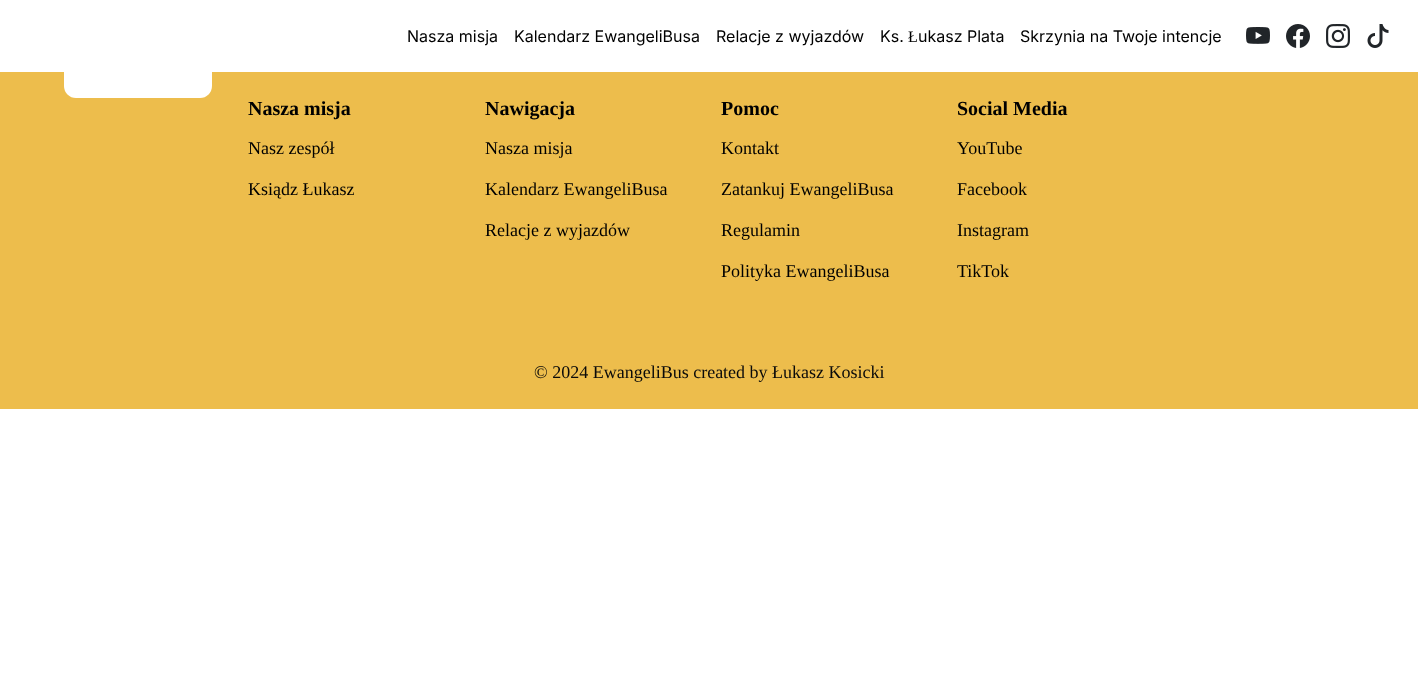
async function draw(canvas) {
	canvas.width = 1418;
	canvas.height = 689;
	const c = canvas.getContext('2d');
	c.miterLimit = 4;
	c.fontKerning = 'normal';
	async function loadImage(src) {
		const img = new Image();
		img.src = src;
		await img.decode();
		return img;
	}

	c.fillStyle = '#fff';
	c.fillRect(0, 0, 1418, 689);
	c.fillStyle = '#edbd4c';
	c.fillRect(0, 72, 1418, 337);
	c.fillStyle = '#fff';
	c.beginPath();
	c.roundRect(64, 10, 148, 88, 12);
	c.fill();
	c.font = '16px Inter';
	c.fillStyle = '#000';
	for (const [text, x, y] of [
		['Nasza misja', 407, 42],
		['Kalendarz EwangeliBusa', 514, 42],
		['Relacje z wyjazdów', 716, 42],
		['Ks.', 880, 42],
	]) {
		c.fillText(text, x, y);
	}
	c.font = '16px Liberation Serif';
	c.fillText('Ł', 908, 42);
	c.font = '16px Inter';
	c.fillText('ukasz Plata', 918, 42);
	c.fillText('Skrzynia na Twoje intencje', 1020, 42);
	c.drawImage(await loadImage('img1.png'), 1246, 27, 24, 17);
	c.drawImage(await loadImage('img2.png'), 1286, 24, 24, 24);
	c.drawImage(await loadImage('img3.png'), 1326, 24, 24, 24);
	c.drawImage(await loadImage('img4.png'), 1367, 24, 22, 24);
	c.font = 'bold 20px Liberation Serif';
	c.fillText('Nasza misja', 248, 115);
	c.font = '18px Liberation Serif';
	c.fillText('Nasz zespół', 248, 154);
	c.fillText('Ksiądz Łukasz', 248, 195);
	c.font = 'bold 20px Liberation Serif';
	c.fillText('Nawigacja', 485, 115);
	c.font = '18px Liberation Serif';
	for (const [text, x, y] of [
		['Nasza misja', 485, 154],
		['Kalendarz EwangeliBusa', 485, 195],
		['Relacje z wyjazdów', 485, 236],
	]) {
		c.fillText(text, x, y);
	}
	c.font = 'bold 20px Liberation Serif';
	c.fillText('Pomoc', 721, 115);
	c.font = '18px Liberation Serif';
	for (const [text, x, y] of [
		['Kontakt', 721, 154],
		['Zatankuj EwangeliBusa', 721, 195],
		['Regulamin', 721, 236],
		['Polityka EwangeliBusa', 721, 277],
	]) {
		c.fillText(text, x, y);
	}
	c.font = 'bold 20px Liberation Serif';
	c.fillText('Social Media', 957, 115);
	c.font = '18px Liberation Serif';
	for (const [text, x, y] of [
		['YouTube', 957, 154],
		['Facebook', 957, 195],
		['Instagram', 957, 236],
		['TikTok', 957, 277],
	]) {
		c.fillText(text, x, y);
	}
	c.fillStyle = '#0a0a0a';
	c.fillText('© 2024 EwangeliBus created by Łukasz Kosicki', 534, 378);
}

draw(document.querySelector('canvas'));
